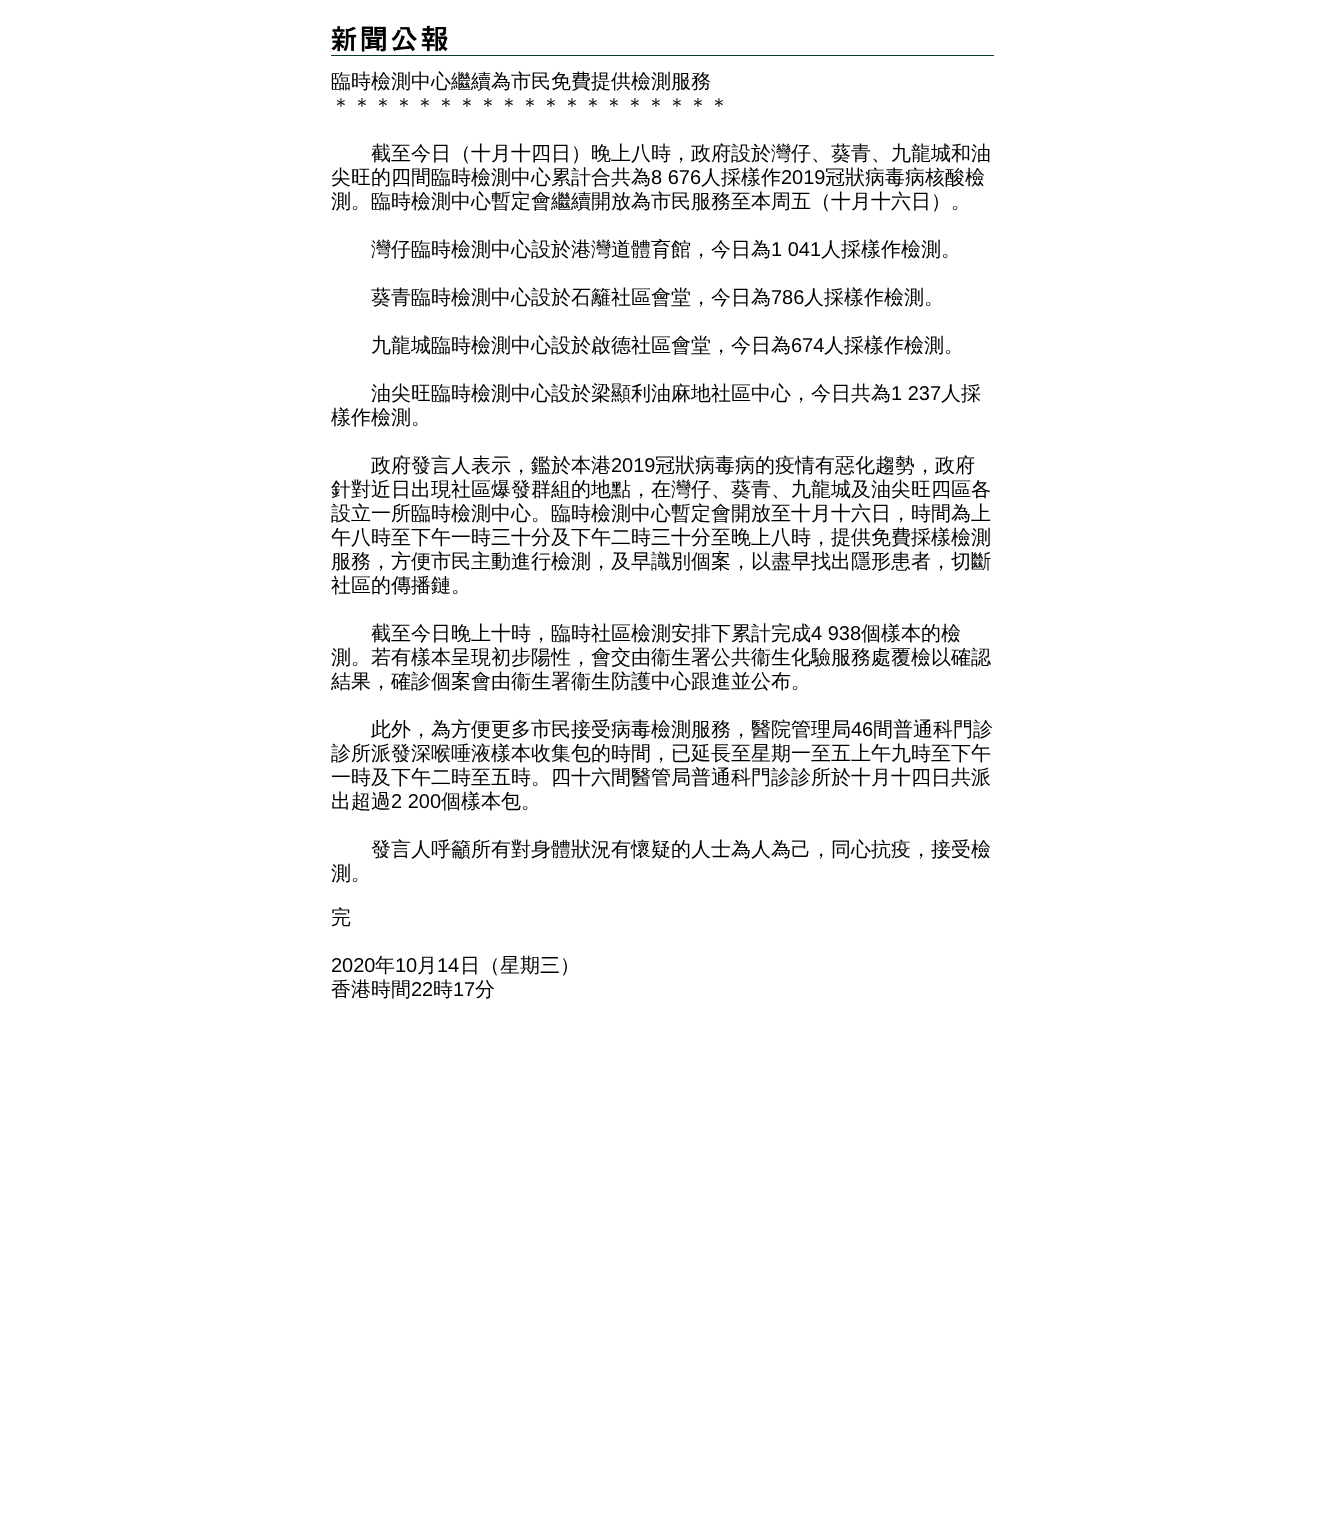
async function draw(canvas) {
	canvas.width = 1323;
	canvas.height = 1532;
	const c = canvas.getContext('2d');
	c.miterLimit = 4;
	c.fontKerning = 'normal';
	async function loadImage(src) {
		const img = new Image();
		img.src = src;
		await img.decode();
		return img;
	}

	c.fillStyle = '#fff';
	c.fillRect(0, 0, 1323, 1532);
	c.fillStyle = '#053e21';
	c.fillRect(331, 55, 663, 1);
	c.drawImage(await loadImage('img1.png'), 331, 25, 117, 27);
	c.font = '500 20px WenQuanYi Zen Hei';
	c.fillStyle = '#000';
	c.fillText('臨時檢測中心繼續為市民免費提供檢測服務', 331, 88);
	c.letterSpacing = '1px';
	c.fillText('＊＊＊＊＊＊＊＊＊＊＊＊＊＊＊＊＊＊＊', 331, 112);
	c.letterSpacing = '0px';
	c.fillText('截至今日（十月十四日）晚上八時，政府設於灣仔、葵青、九龍城和油', 371, 160);
	c.fillText('尖旺的四間臨時檢測中心累計合共為', 331, 184);
	c.font = '20px Liberation Sans';
	c.fillText('8 676', 651, 184);
	c.font = '500 20px WenQuanYi Zen Hei';
	c.fillText('人採樣作', 701, 184);
	c.font = '20px Liberation Sans';
	c.fillText('2019', 781, 184);
	c.font = '500 20px WenQuanYi Zen Hei';
	for (const [text, x, y] of [
		['冠狀病毒病核酸檢', 825, 184],
		['測。臨時檢測中心暫定會繼續開放為市民服務至本周五（十月十六日）。', 331, 208],
		['灣仔臨時檢測中心設於港灣道體育館，今日為', 371, 256],
	]) {
		c.fillText(text, x, y);
	}
	c.font = '20px Liberation Sans';
	c.fillText('1 041', 771, 256);
	c.font = '500 20px WenQuanYi Zen Hei';
	c.fillText('人採樣作檢測。', 821, 256);
	c.fillText('葵青臨時檢測中心設於石籬社區會堂，今日為', 371, 304);
	c.font = '20px Liberation Sans';
	c.fillText('786', 771, 304);
	c.font = '500 20px WenQuanYi Zen Hei';
	c.fillText('人採樣作檢測。', 804, 304);
	c.fillText('九龍城臨時檢測中心設於啟德社區會堂，今日為', 371, 352);
	c.font = '20px Liberation Sans';
	c.fillText('674', 791, 352);
	c.font = '500 20px WenQuanYi Zen Hei';
	c.fillText('人採樣作檢測。', 824, 352);
	c.fillText('油尖旺臨時檢測中心設於梁顯利油麻地社區中心，今日共為', 371, 400);
	c.font = '20px Liberation Sans';
	c.fillText('1 237', 891, 400);
	c.font = '500 20px WenQuanYi Zen Hei';
	for (const [text, x, y] of [
		['人採', 941, 400],
		['樣作檢測。', 331, 424],
		['政府發言人表示，鑑於本港', 371, 472],
	]) {
		c.fillText(text, x, y);
	}
	c.font = '20px Liberation Sans';
	c.fillText('2019', 611, 472);
	c.font = '500 20px WenQuanYi Zen Hei';
	for (const [text, x, y] of [
		['冠狀病毒病的疫情有惡化趨勢，政府', 655, 472],
		['針對近日出現社區爆發群組的地點，在灣仔、葵青、九龍城及油尖旺四區各', 331, 496],
		['設立一所臨時檢測中心。臨時檢測中心暫定會開放至十月十六日，時間為上', 331, 520],
		['午八時至下午一時三十分及下午二時三十分至晚上八時，提供免費採樣檢測', 331, 544],
		['服務，方便市民主動進行檢測，及早識別個案，以盡早找出隱形患者，切斷', 331, 568],
		['社區的傳播鏈。', 331, 592],
		['截至今日晚上十時，臨時社區檢測安排下累計完成', 371, 640],
	]) {
		c.fillText(text, x, y);
	}
	c.font = '20px Liberation Sans';
	c.fillText('4 938', 811, 640);
	c.font = '500 20px WenQuanYi Zen Hei';
	for (const [text, x, y] of [
		['個樣本的檢', 861, 640],
		['測。若有樣本呈現初步陽性，會交由衞生署公共衞生化驗服務處覆檢以確認', 331, 664],
		['結果，確診個案會由衞生署衞生防護中心跟進並公布。', 331, 688],
		['此外，為方便更多市民接受病毒檢測服務，醫院管理局', 371, 736],
	]) {
		c.fillText(text, x, y);
	}
	c.font = '20px Liberation Sans';
	c.fillText('46', 851, 736);
	c.font = '500 20px WenQuanYi Zen Hei';
	for (const [text, x, y] of [
		['間普通科門診', 873, 736],
		['診所派發深喉唾液樣本收集包的時間，已延長至星期一至五上午九時至下午', 331, 760],
		['一時及下午二時至五時。四十六間醫管局普通科門診診所於十月十四日共派', 331, 784],
		['出超過', 331, 808],
	]) {
		c.fillText(text, x, y);
	}
	c.font = '20px Liberation Sans';
	c.fillText('2 200', 391, 808);
	c.font = '500 20px WenQuanYi Zen Hei';
	for (const [text, x, y] of [
		['個樣本包。', 441, 808],
		['發言人呼籲所有對身體狀況有懷疑的人士為人為己，同心抗疫，接受檢', 371, 856],
		['測。', 331, 880],
		['完', 331, 924],
	]) {
		c.fillText(text, x, y);
	}
	c.font = '20px Liberation Sans';
	c.fillText('2020', 331, 972);
	c.font = '500 20px WenQuanYi Zen Hei';
	c.fillText('年', 375, 972);
	c.font = '20px Liberation Sans';
	c.fillText('10', 395, 972);
	c.font = '500 20px WenQuanYi Zen Hei';
	c.fillText('月', 417, 972);
	c.font = '20px Liberation Sans';
	c.fillText('14', 437, 972);
	c.font = '500 20px WenQuanYi Zen Hei';
	c.fillText('日（星期三）', 460, 972);
	c.fillText('香港時間', 331, 996);
	c.font = '20px Liberation Sans';
	c.fillText('22', 411, 996);
	c.font = '500 20px WenQuanYi Zen Hei';
	c.fillText('時', 433, 996);
	c.font = '20px Liberation Sans';
	c.fillText('17', 453, 996);
	c.font = '500 20px WenQuanYi Zen Hei';
	c.fillText('分', 475, 996);
}

draw(document.querySelector('canvas'));
